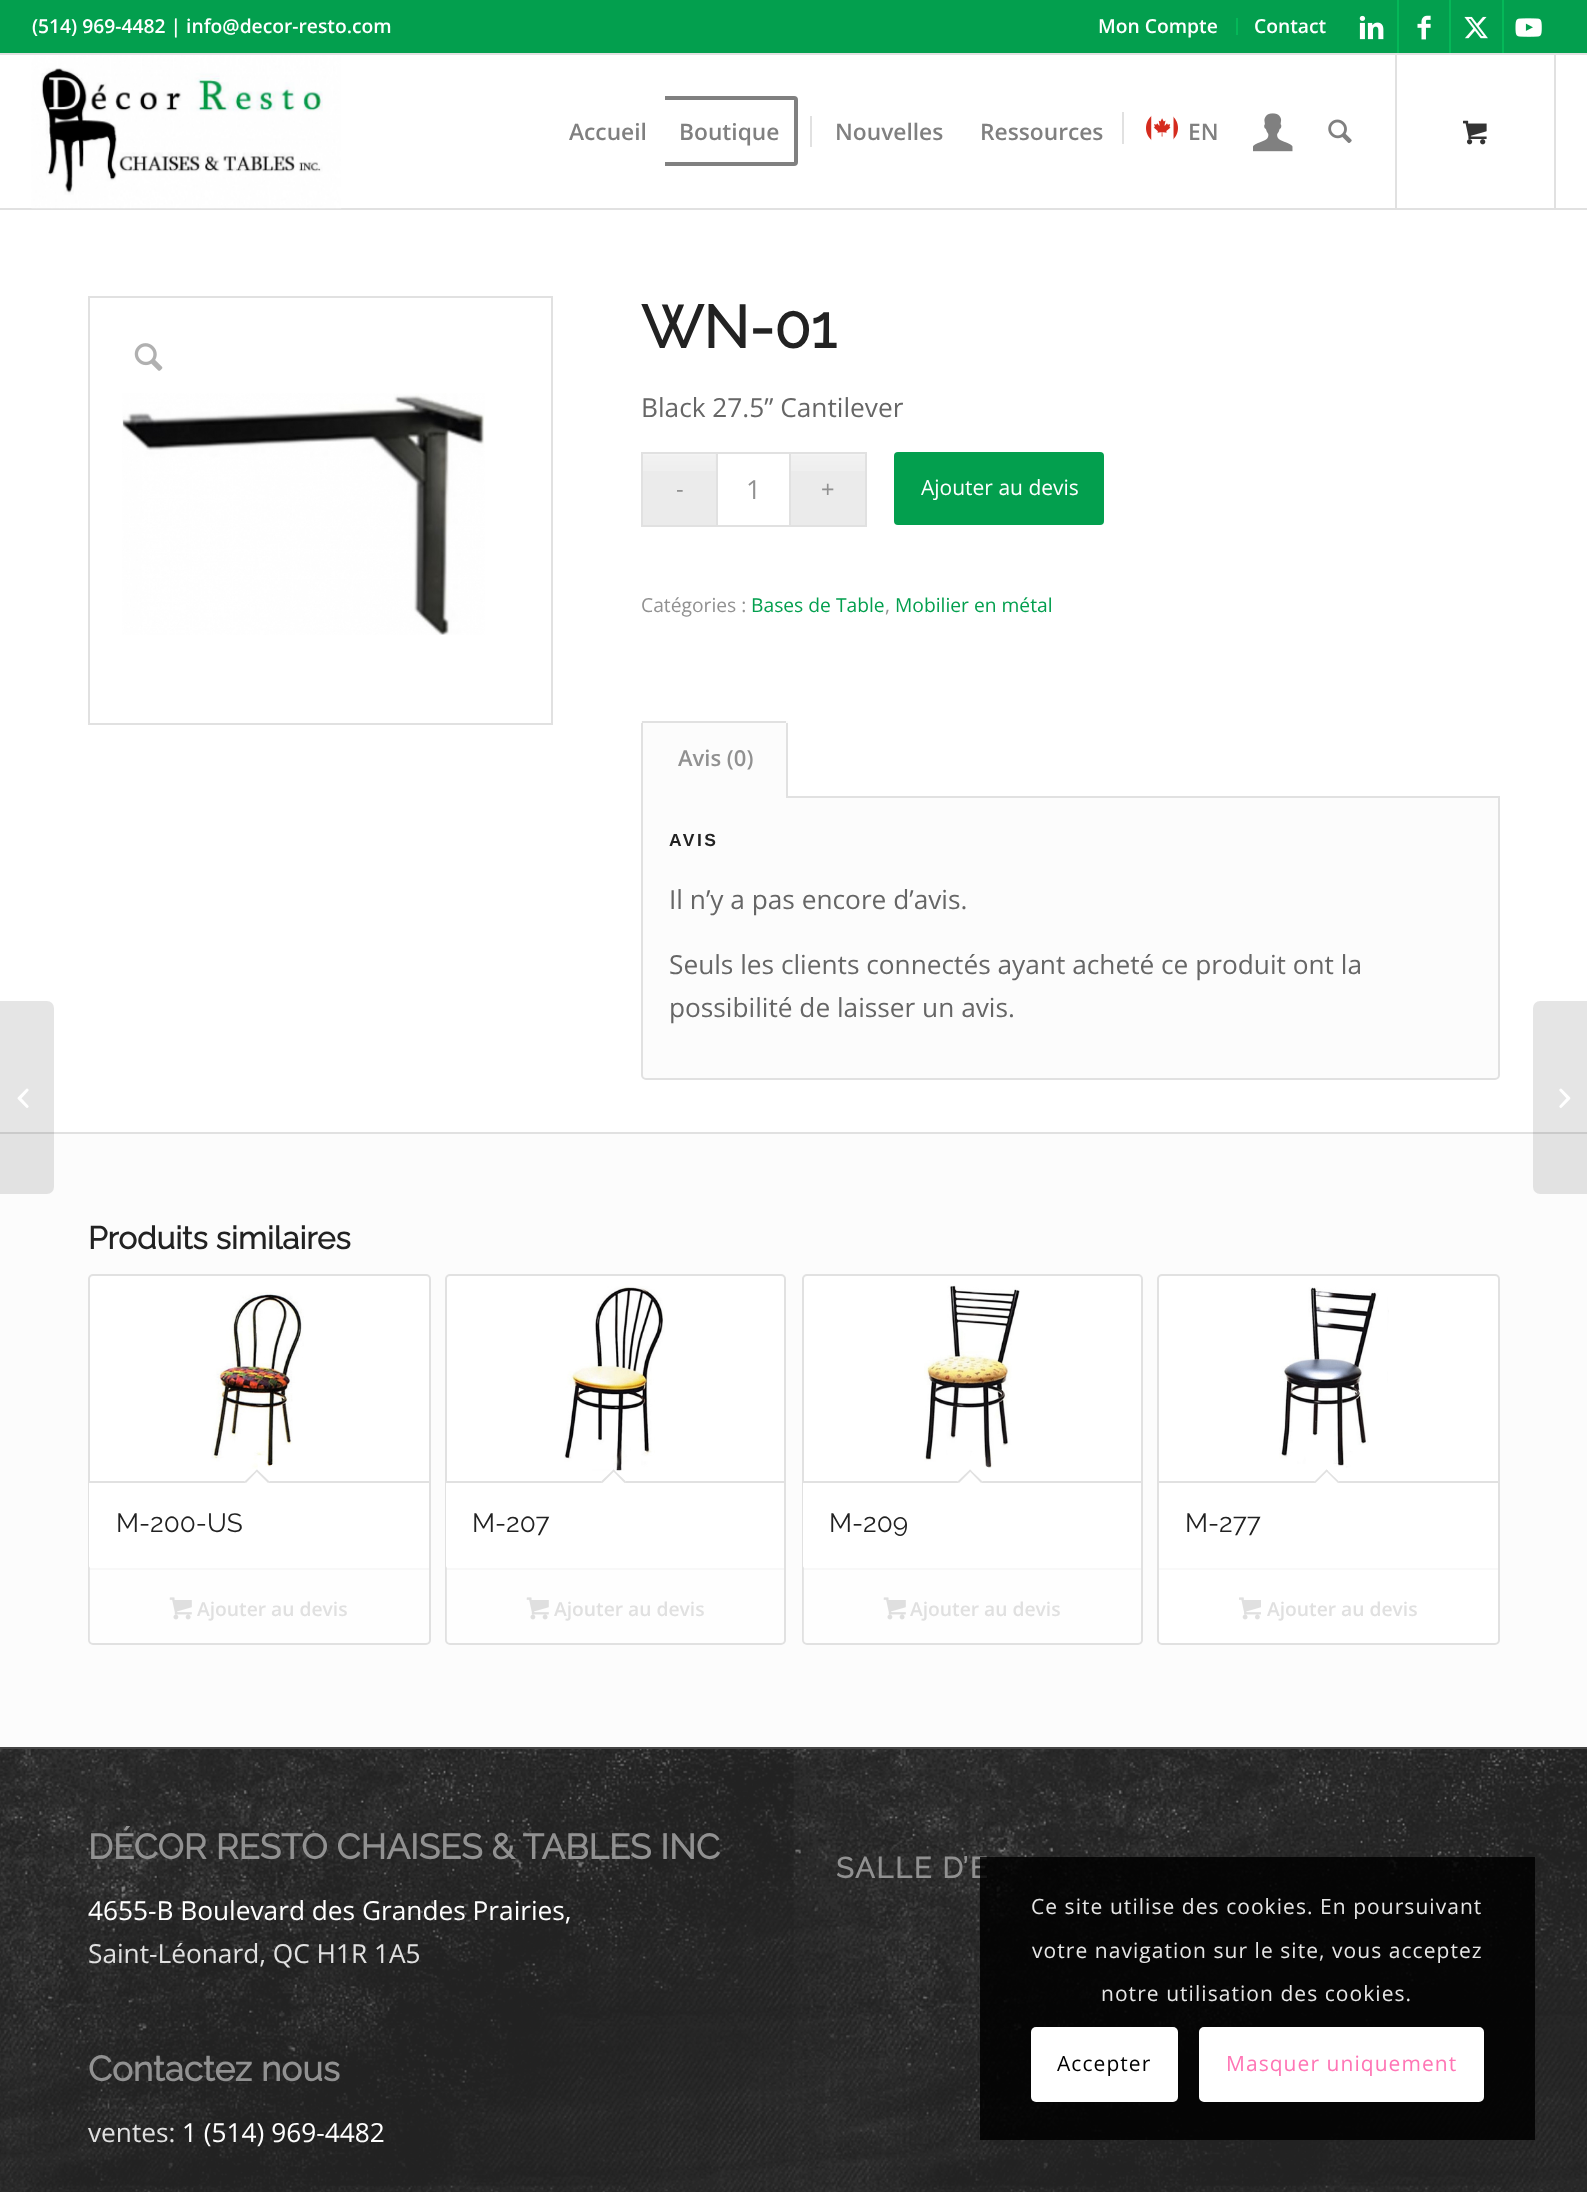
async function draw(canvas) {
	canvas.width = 1587;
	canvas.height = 2192;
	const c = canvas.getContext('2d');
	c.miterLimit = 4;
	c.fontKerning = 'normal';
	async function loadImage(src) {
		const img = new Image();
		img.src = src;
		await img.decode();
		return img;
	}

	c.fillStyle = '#fff';
	c.fillRect(0, 0, 1587, 2192);
	for (const [x, y, w, h, color] of [
		[0, 0, 1587, 53, '#039f4e'],
		[1554, 54, 2, 154, '#e1e1e1'],
		[1395, 54, 2, 154, '#e1e1e1'],
		[0, 53, 1587, 2, '#e1e1e1'],
	]) {
		c.fillStyle = color;
		c.fillRect(x, y, w, h);
	}
	c.font = '600 19.25px Open Sans';
	c.fillStyle = '#fff';
	c.fillText('(514) 969-4482 | info@decor-resto.com', 32, 33);
	c.fillStyle = '#04b858';
	c.fillRect(1236, 18, 2, 17);
	c.fillStyle = '#fff';
	c.fillText('Mon Compte', 1098, 33);
	c.fillText('Contact', 1254, 33);
	c.fillStyle = '#04b858';
	c.fillRect(1397, 0, 2, 53);
	c.drawImage(await loadImage('img1.png'), 1359, 15, 25, 25);
	c.fillRect(1449, 0, 2, 53);
	c.drawImage(await loadImage('img2.png'), 1417, 15, 14, 25);
	c.fillRect(1502, 0, 2, 53);
	c.drawImage(await loadImage('img3.png'), 1464, 16, 24, 23);
	c.drawImage(await loadImage('img4.png'), 1515, 18, 27, 19);
	c.fillStyle = '#e1e1e1';
	c.fillRect(0, 208, 1587, 2);
	c.drawImage(await loadImage('img5.png'), 31, 55, 311, 154);
	c.font = '600 22.75px Open Sans';
	c.fillStyle = '#808080';
	c.fillText('Accueil', 569, 140);
	c.save();
	c.beginPath();
	c.rect(665, 54, 151, 154);
	c.clip();
	c.beginPath();
	c.roundRect(662, 98, 134, 66, 2);
	c.strokeStyle = '#808080';
	c.lineWidth = 4;
	c.stroke();
	c.restore();
	c.fillText('Boutique', 679, 140);
	c.fillText('Nouvelles', 835, 140);
	c.fillStyle = '#e1e1e1';
	c.fillRect(810, 116, 2, 31);
	c.fillStyle = '#808080';
	c.fillText('Ressources', 980, 140);
	c.fillStyle = '#e1e1e1';
	c.fillRect(1122, 112, 2, 32);
	c.drawImage(await loadImage('img6.png'), 1146, 115, 32, 26);
	c.fillStyle = '#808080';
	c.fillText('EN', 1188, 140);
	c.drawImage(await loadImage('img7.png'), 1253, 113, 40, 39);
	c.drawImage(await loadImage('img8.png'), 1328, 119, 24, 24);
	c.drawImage(await loadImage('img9.png'), 1463, 120, 24, 25);
	c.fillStyle = '#fcfcfc';
	c.fillRect(0, 1134, 1587, 613);
	c.fillStyle = '#e1e1e1';
	c.fillRect(0, 1132, 1587, 2);
	c.fillStyle = '#0000001a';
	c.beginPath();
	c.roundRect(0, 1001, 54, 193, [0, 7, 7, 0]);
	c.fill();
	c.drawImage(await loadImage('img10.png'), 17, 1088, 12, 20);
	c.strokeStyle = '#e1e1e1';
	c.lineWidth = 2;
	c.strokeRect(89, 297, 463, 427);
	c.drawImage(await loadImage('img11.png'), 122, 393, 363, 242);
	c.drawImage(await loadImage('img12.png'), 134, 343, 29, 28);
	c.font = 'bold 59.5px Raleway';
	c.fillStyle = '#222';
	c.fillText('WN-01', 641, 348);
	c.font = '26.25px Open Sans';
	c.fillStyle = '#666';
	c.fillText('Black 27.5” Cantilever', 641, 417);
	c.fillStyle = '#ebebeb';
	c.fillRect(643, 454, 73, 71);
	c.drawImage(await loadImage('img13.png'), 643, 454, 73, 17);
	c.fillRect(791, 454, 74, 71);
	c.drawImage(await loadImage('img14.png'), 791, 454, 74, 17);
	c.font = '23px Liberation Sans';
	c.fillStyle = '#919191';
	c.fillText('-', 676, 497);
	for (const [x, y, w, h, color] of [
		[641, 452, 75, 2, '#e1e1e1'],
		[641, 525, 75, 2, '#e1e1e1'],
		[641, 452, 2, 75, '#e1e1e1'],
	]) {
		c.fillStyle = color;
		c.fillRect(x, y, w, h);
	}
	c.strokeRect(717, 453, 73, 73);
	c.font = '26.25px Open Sans';
	c.fillStyle = '#919191';
	c.fillText('1', 746, 499);
	c.font = '23px Liberation Sans';
	c.fillText('+', 821, 497);
	for (const [x, y, w, h, color] of [
		[791, 452, 75, 2, '#e1e1e1'],
		[865, 452, 2, 75, '#e1e1e1'],
		[791, 525, 75, 2, '#e1e1e1'],
	]) {
		c.fillStyle = color;
		c.fillRect(x, y, w, h);
	}
	c.fillStyle = '#039f4e';
	c.beginPath();
	c.roundRect(894, 452, 210, 73, 4);
	c.fill();
	c.font = '21px Open Sans';
	c.fillStyle = '#fff';
	c.fillText('Ajouter au devis', 921, 495);
	c.font = '19.25px Open Sans';
	c.fillStyle = '#919191';
	c.fillText('Catégories :', 641, 612);
	c.fillStyle = '#039f4e';
	c.fillText('Bases de Table', 751, 612);
	c.fillStyle = '#919191';
	c.fillText(',', 885, 612);
	c.fillStyle = '#039f4e';
	c.fillText('Mobilier en métal', 895, 612);
	c.fillStyle = '#fcfcfc';
	c.beginPath();
	c.roundRect(642, 797, 857, 282, [0, 0, 4, 4]);
	c.fill();
	c.stroke();
	for (const [x, y, w, h, color] of [
		[641, 721, 147, 77, '#fcfcfc'],
		[642, 721, 144, 2, '#e1e1e1'],
		[786, 723, 2, 75, '#e1e1e1'],
		[641, 723, 2, 75, '#e1e1e1'],
	]) {
		c.fillStyle = color;
		c.fillRect(x, y, w, h);
	}
	c.font = '600 22px Open Sans';
	c.fillStyle = '#919191';
	c.fillText('Avis (0)', 678, 766);
	c.letterSpacing = '2.5px';
	c.font = 'bold 17.5px Liberation Sans';
	c.fillStyle = '#222';
	c.fillText('AVIS', 669, 846);
	c.letterSpacing = '0px';
	c.font = '26.25px Open Sans';
	c.fillStyle = '#666';
	for (const [text, x, y] of [
		['Il n’y a pas encore d’avis.', 669, 909],
		['Seuls les clients connectés ayant acheté ce produit ont la', 669, 974],
		['possibilité de laisser un avis.', 669, 1017],
	]) {
		c.fillText(text, x, y);
	}
	c.font = 'bold 31.5px Raleway';
	c.fillStyle = '#222';
	c.fillText('Produits similaires', 88, 1249);
	c.fillStyle = '#fff';
	c.beginPath();
	c.roundRect(89, 1275, 341, 369, 4);
	c.fill();
	c.stroke();
	c.drawImage(await loadImage('img15.png'), 211, 1292, 93, 177);
	c.beginPath();
	c.roundRect(89, 1481, 340, 87, [0, 0, 2, 2]);
	c.fill();
	c.fillStyle = '#e1e1e1';
	c.fillRect(89, 1481, 340, 2);
	c.fillStyle = '#fff';
	c.beginPath();
	c.moveTo(257, 1469.5);
	c.lineTo(269.5, 1481.5);
	c.lineTo(257, 1494);
	c.lineTo(244.5, 1481.5);
	c.closePath();
	c.fill();
	c.fillStyle = '#e1e1e1';
	c.beginPath();
	c.moveTo(257, 1469.5);
	c.lineTo(269.5, 1481.5);
	c.lineTo(268, 1483);
	c.lineTo(255.5, 1470.5);
	c.closePath();
	c.fill();
	c.beginPath();
	c.moveTo(257, 1469.5);
	c.lineTo(258, 1470.5);
	c.lineTo(246, 1483);
	c.lineTo(244.5, 1481.5);
	c.closePath();
	c.fill();
	c.font = '100 26.25px Raleway';
	c.fillStyle = '#222';
	c.fillText('M-200-US', 116, 1532);
	c.fillStyle = '#fcfcfc33';
	c.beginPath();
	c.roundRect(89, 1568, 340, 75, [0, 0, 4, 4]);
	c.fill();
	c.fillStyle = '#e1e1e133';
	c.fillRect(89, 1568, 340, 2);
	c.drawImage(await loadImage('img16.png'), 169, 1597, 23, 23);
	c.font = '600 19.25px Open Sans';
	c.fillStyle = '#e0e0e0';
	c.fillText('Ajouter au devis', 197, 1616);
	c.fillStyle = '#fff';
	c.beginPath();
	c.roundRect(446, 1275, 339, 369, 4);
	c.fill();
	c.stroke();
	c.drawImage(await loadImage('img17.png'), 564, 1286, 101, 185);
	c.beginPath();
	c.roundRect(446, 1481, 338, 87, [0, 0, 2, 2]);
	c.fill();
	c.fillStyle = '#e1e1e1';
	c.fillRect(446, 1481, 338, 2);
	c.fillStyle = '#fff';
	c.beginPath();
	c.moveTo(613.5, 1469.5);
	c.lineTo(626, 1481.5);
	c.lineTo(613.5, 1494);
	c.lineTo(601, 1481.5);
	c.closePath();
	c.fill();
	c.fillStyle = '#e1e1e1';
	c.beginPath();
	c.moveTo(613.5, 1469.5);
	c.lineTo(626, 1481.5);
	c.lineTo(624.5, 1483);
	c.lineTo(612.5, 1470.5);
	c.closePath();
	c.fill();
	c.beginPath();
	c.moveTo(613.5, 1469.5);
	c.lineTo(615, 1470.5);
	c.lineTo(602.5, 1483);
	c.lineTo(601, 1481.5);
	c.closePath();
	c.fill();
	c.font = '100 26.25px Raleway';
	c.fillStyle = '#222';
	c.fillText('M-207', 472, 1532);
	c.fillStyle = '#fcfcfc33';
	c.beginPath();
	c.roundRect(446, 1568, 338, 75, [0, 0, 4, 4]);
	c.fill();
	c.fillStyle = '#e1e1e133';
	c.fillRect(446, 1568, 338, 2);
	c.drawImage(await loadImage('img16.png'), 526, 1597, 23, 23);
	c.font = '600 19.25px Open Sans';
	c.fillStyle = '#e0e0e0';
	c.fillText('Ajouter au devis', 554, 1616);
	c.fillStyle = '#fff';
	c.beginPath();
	c.roundRect(803, 1275, 339, 369, 4);
	c.fill();
	c.stroke();
	c.drawImage(await loadImage('img18.png'), 924, 1285, 96, 183);
	c.beginPath();
	c.roundRect(803, 1481, 338, 87, [0, 0, 2, 2]);
	c.fill();
	c.fillStyle = '#e1e1e1';
	c.fillRect(803, 1481, 338, 2);
	c.fillStyle = '#fff';
	c.beginPath();
	c.moveTo(970, 1469.5);
	c.lineTo(982.5, 1481.5);
	c.lineTo(970, 1494);
	c.lineTo(957.5, 1481.5);
	c.closePath();
	c.fill();
	c.fillStyle = '#e1e1e1';
	c.beginPath();
	c.moveTo(970, 1469.5);
	c.lineTo(982.5, 1481.5);
	c.lineTo(981, 1483);
	c.lineTo(969, 1470.5);
	c.closePath();
	c.fill();
	c.beginPath();
	c.moveTo(970, 1469.5);
	c.lineTo(971.5, 1470.5);
	c.lineTo(959, 1483);
	c.lineTo(957.5, 1481.5);
	c.closePath();
	c.fill();
	c.font = '100 26.25px Raleway';
	c.fillStyle = '#222';
	c.fillText('M-209', 829, 1532);
	c.fillStyle = '#fcfcfc33';
	c.beginPath();
	c.roundRect(803, 1568, 338, 75, [0, 0, 4, 4]);
	c.fill();
	c.fillStyle = '#e1e1e133';
	c.fillRect(803, 1568, 338, 2);
	c.drawImage(await loadImage('img16.png'), 883, 1597, 23, 23);
	c.font = '600 19.25px Open Sans';
	c.fillStyle = '#e0e0e0';
	c.fillText('Ajouter au devis', 910, 1616);
	c.fillStyle = '#fff';
	c.beginPath();
	c.roundRect(1158, 1275, 341, 369, 4);
	c.fill();
	c.stroke();
	c.drawImage(await loadImage('img19.png'), 1279, 1287, 110, 181);
	c.fillStyle = '#e1e1e1';
	c.fillRect(1159, 1481, 339, 2);
	c.fillStyle = '#fff';
	c.beginPath();
	c.moveTo(1326.5, 1469.5);
	c.lineTo(1339, 1481.5);
	c.lineTo(1326.5, 1494);
	c.lineTo(1314.5, 1481.5);
	c.closePath();
	c.fill();
	c.fillStyle = '#e1e1e1';
	c.beginPath();
	c.moveTo(1326.5, 1469.5);
	c.lineTo(1339, 1481.5);
	c.lineTo(1338, 1483);
	c.lineTo(1325.5, 1470.5);
	c.closePath();
	c.fill();
	c.beginPath();
	c.moveTo(1326.5, 1469.5);
	c.lineTo(1328, 1470.5);
	c.lineTo(1315.5, 1483);
	c.lineTo(1314.5, 1481.5);
	c.closePath();
	c.fill();
	c.font = '100 26.25px Raleway';
	c.fillStyle = '#222';
	c.fillText('M-277', 1185, 1532);
	c.fillStyle = '#f9f9f9';
	c.fillRect(1159, 1568, 339, 2);
	c.drawImage(await loadImage('img20.png'), 1239, 1597, 22, 23);
	c.font = '600 19.25px Open Sans';
	c.fillStyle = '#e0e0e0';
	c.fillText('Ajouter au devis', 1267, 1616);
	c.fillStyle = '#222';
	c.fillRect(0, 1749, 1587, 443);
	c.drawImage(await loadImage('img21.png'), 0, 1749, 1587, 443);
	c.fillStyle = '#444';
	c.fillRect(0, 1747, 1587, 2);
	c.font = 'bold 35px Raleway';
	c.fillStyle = '#919191';
	c.fillText('DÉCOR RESTO CHAISES & TABLES INC', 88, 1859);
	c.font = '26.25px Open Sans';
	c.fillStyle = '#fff';
	c.fillText('4655-B Boulevard des Grandes Prairies,', 88, 1920);
	c.fillStyle = '#e0e0e0';
	c.fillText('Saint-Léonard, QC H1R 1A5', 88, 1963);
	c.font = 'bold 35px Raleway';
	c.fillStyle = '#919191';
	c.fillText('Contactez nous', 88, 2081);
	c.font = '26.25px Open Sans';
	c.fillStyle = '#e0e0e0';
	c.fillText('ventes:', 88, 2142);
	c.fillStyle = '#fff';
	c.fillText('1 (514) 969-4482', 182, 2142);
	c.letterSpacing = '1.75px';
	c.font = 'bold 29px Raleway';
	c.fillStyle = '#919191';
	c.fillText('SALLE D’E', 836, 1878);
	c.fillStyle = '#0000001a';
	c.beginPath();
	c.roundRect(1533, 1001, 54, 193, [7, 0, 0, 7]);
	c.fill();
	c.drawImage(await loadImage('img22.png'), 1559, 1088, 12, 20);
	c.fillStyle = '#000000d9';
	c.fillRect(980, 1857, 555, 283);
	c.letterSpacing = '1.05px';
	c.font = '21px Open Sans';
	c.fillStyle = '#e6e6e6';
	for (const [text, x, y] of [
		['Ce site utilise des cookies. En poursuivant', 1031, 1914],
		['votre navigation sur le site, vous acceptez', 1032, 1958],
		['notre utilisation des cookies.', 1101, 2001],
	]) {
		c.fillText(text, x, y);
	}
	c.fillStyle = '#fff';
	c.beginPath();
	c.roundRect(1031, 2027, 147, 75, 5);
	c.fill();
	c.fillStyle = '#000';
	c.fillText('Accepter', 1057, 2071);
	c.fillStyle = '#fff';
	c.beginPath();
	c.roundRect(1201, 2029, 281, 71, 3);
	c.fill();
	c.strokeStyle = '#fff';
	c.lineWidth = 4;
	c.stroke();
	c.fillStyle = '#ff75b5';
	c.fillText('Masquer uniquement', 1226, 2071);
}

draw(document.querySelector('canvas'));
